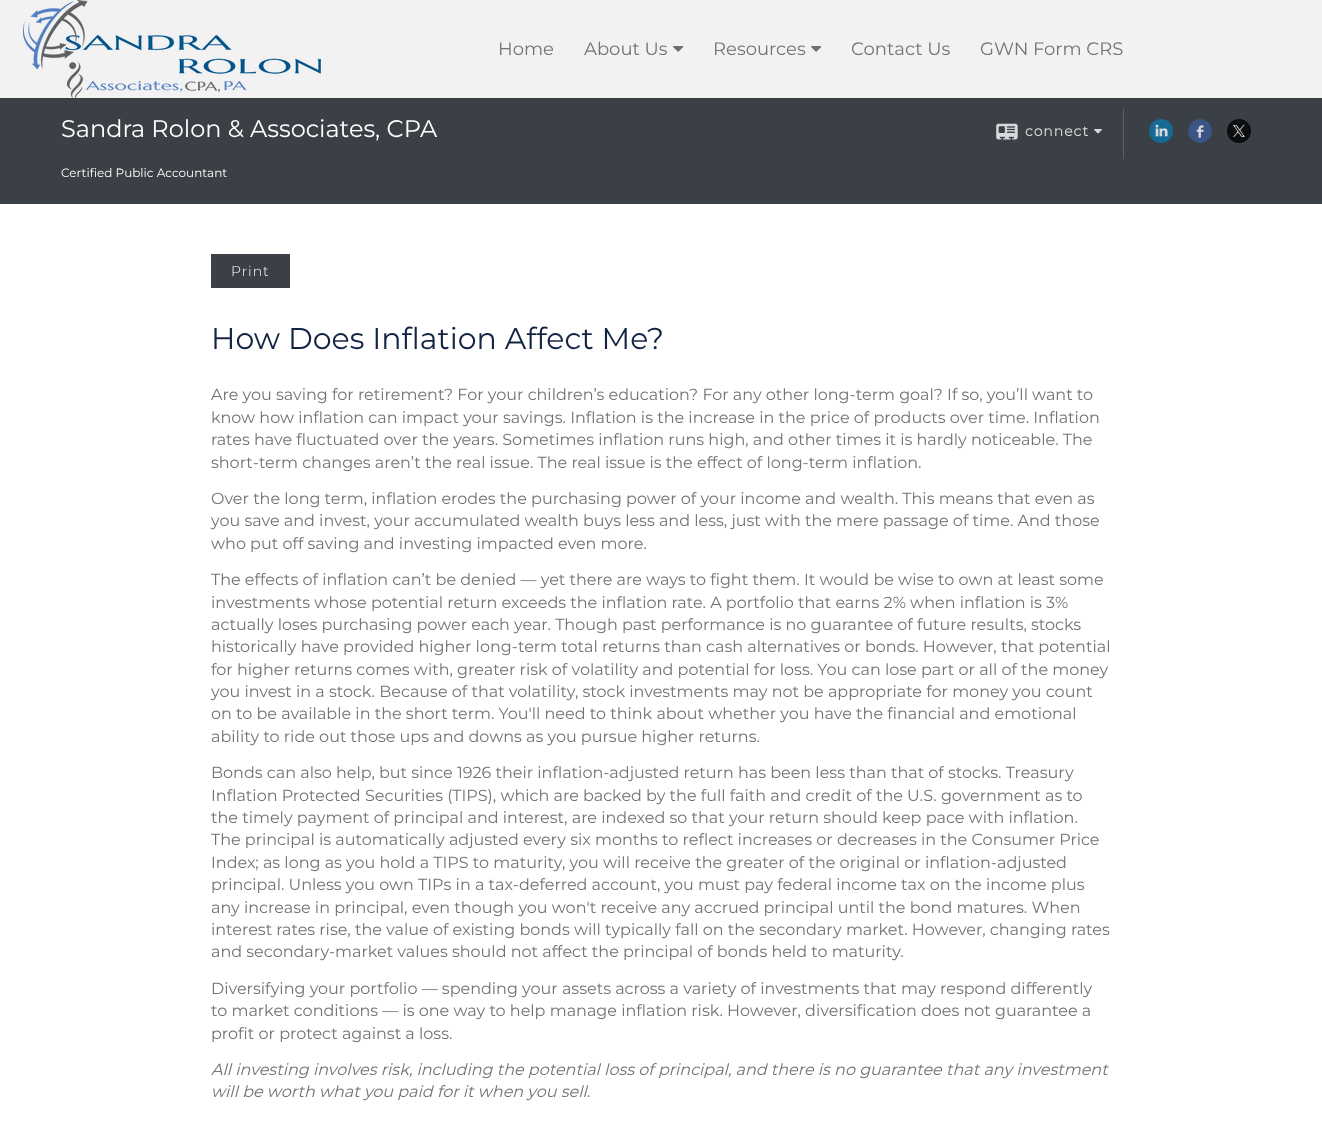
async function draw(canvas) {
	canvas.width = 1322;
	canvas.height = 1130;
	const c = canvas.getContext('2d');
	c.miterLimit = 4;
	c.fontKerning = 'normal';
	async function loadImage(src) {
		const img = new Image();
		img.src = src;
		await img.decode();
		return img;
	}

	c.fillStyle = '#3b4046';
	c.fillRect(0, 0, 1322, 1130);
	c.fillStyle = '#f2f2f2';
	c.fillRect(0, 0, 1322, 98);
	c.drawImage(await loadImage('img1.png'), 22, 0, 299, 98);
	c.font = '18px Montserrat';
	c.fillStyle = '#737373';
	c.fillText('Home', 498, 55);
	c.fillText('About Us', 584, 55);
	c.drawImage(await loadImage('img2.png'), 673, 46, 11, 6);
	c.fillText('Resources', 713, 55);
	c.drawImage(await loadImage('img2.png'), 811, 46, 11, 6);
	c.fillText('Contact Us', 851, 55);
	c.fillText('GWN Form CRS', 980, 55);
	c.font = '24px Montserrat';
	c.fillStyle = '#fff';
	c.fillText('Sandra Rolon & Associates, CPA', 61, 137);
	c.font = '12px Montserrat';
	c.fillText('Certified Public Accountant', 61, 177);
	c.drawImage(await loadImage('img3.png'), 996, 123, 22, 17);
	c.letterSpacing = '1px';
	c.font = 'bold 14px Montserrat';
	c.fillStyle = '#d8d9da';
	c.fillText('connect', 1025, 136);
	c.drawImage(await loadImage('img4.png'), 1094, 129, 8, 5);
	c.fillStyle = '#5c6167';
	c.fillRect(1123, 109, 1, 50);
	c.drawImage(await loadImage('img5.png'), 1149, 119, 24, 24);
	c.drawImage(await loadImage('img6.png'), 1188, 119, 24, 24);
	c.drawImage(await loadImage('img7.png'), 1227, 119, 24, 24);
	c.fillStyle = '#fff';
	c.fillRect(0, 204, 1322, 926);
	c.fillStyle = '#3b4046';
	c.fillRect(211, 254, 79, 34);
	c.font = '300 14px Montserrat';
	c.fillStyle = '#fff';
	c.fillText('Print', 231, 276);
	c.letterSpacing = '0px';
	c.font = '30px Montserrat';
	c.fillStyle = '#122442';
	c.fillText('How Does Inflation Affect Me?', 211, 349);
	c.font = '16px Montserrat';
	c.fillStyle = '#737373';
	for (const [text, x, y] of [
		['Are you saving for retirement? For your children’s education? For any other long-term goal? If so, you’ll want to', 211, 400],
		['know how inflation can impact your savings. Inflation is the increase in the price of products over time. Inflation', 211, 423],
		['rates have fluctuated over the years. Sometimes inflation runs high, and other times it is hardly noticeable. The', 211, 445],
		['short-term changes aren’t the real issue. The real issue is the effect of long-term inflation.', 211, 468],
		['Over the long term, inflation erodes the purchasing power of your income and wealth. This means that even as', 211, 504],
		['you save and invest, your accumulated wealth buys less and less, just with the mere passage of time. And those', 211, 526],
		['who put off saving and investing impacted even more.', 211, 549],
		['The effects of inflation can’t be denied — yet there are ways to fight them. It would be wise to own at least some', 211, 585],
		['investments whose potential return exceeds the inflation rate. A portfolio that earns 2% when inflation is 3%', 211, 608],
		['actually loses purchasing power each year. Though past performance is no guarantee of future results, stocks', 211, 630],
		['historically have provided higher long-term total returns than cash alternatives or bonds. However, that potential', 211, 652],
		['for higher returns comes with, greater risk of volatility and potential for loss. You can lose part or all of the money', 211, 675],
		['you invest in a stock. Because of that volatility, stock investments may not be appropriate for money you count', 211, 697],
		['on to be available in the short term. You\'ll need to think about whether you have the financial and emotional', 211, 719],
		['ability to ride out those ups and downs as you pursue higher returns.', 211, 742],
		['Bonds can also help, but since 1926 their inflation-adjusted return has been less than that of stocks. Treasury', 211, 778],
		['Inflation Protected Securities (TIPS), which are backed by the full faith and credit of the U.S. government as to', 211, 801],
		['the timely payment of principal and interest, are indexed so that your return should keep pace with inflation.', 211, 823],
		['The principal is automatically adjusted every six months to reflect increases or decreases in the Consumer Price', 211, 845],
		['Index; as long as you hold a TIPS to maturity, you will receive the greater of the original or inflation-adjusted', 211, 868],
		['principal. Unless you own TIPs in a tax-deferred account, you must pay federal income tax on the income plus', 211, 890],
		['any increase in principal, even though you won\'t receive any accrued principal until the bond matures. When', 211, 913],
		['interest rates rise, the value of existing bonds will typically fall on the secondary market. However, changing rates', 211, 935],
		['and secondary-market values should not affect the principal of bonds held to maturity.', 211, 957],
		['Diversifying your portfolio — spending your assets across a variety of investments that may respond differently', 211, 994],
		['to market conditions — is one way to help manage inflation risk. However, diversification does not guarantee a', 211, 1016],
		['profit or protect against a loss.', 211, 1039],
	]) {
		c.fillText(text, x, y);
	}
	c.font = 'italic 16px Montserrat';
	c.fillText('All investing involves risk, including the potential loss of principal, and there is no guarantee that any investment', 211, 1075);
	c.fillText('will be worth what you paid for it when you sell.', 211, 1097);
}

draw(document.querySelector('canvas'));
